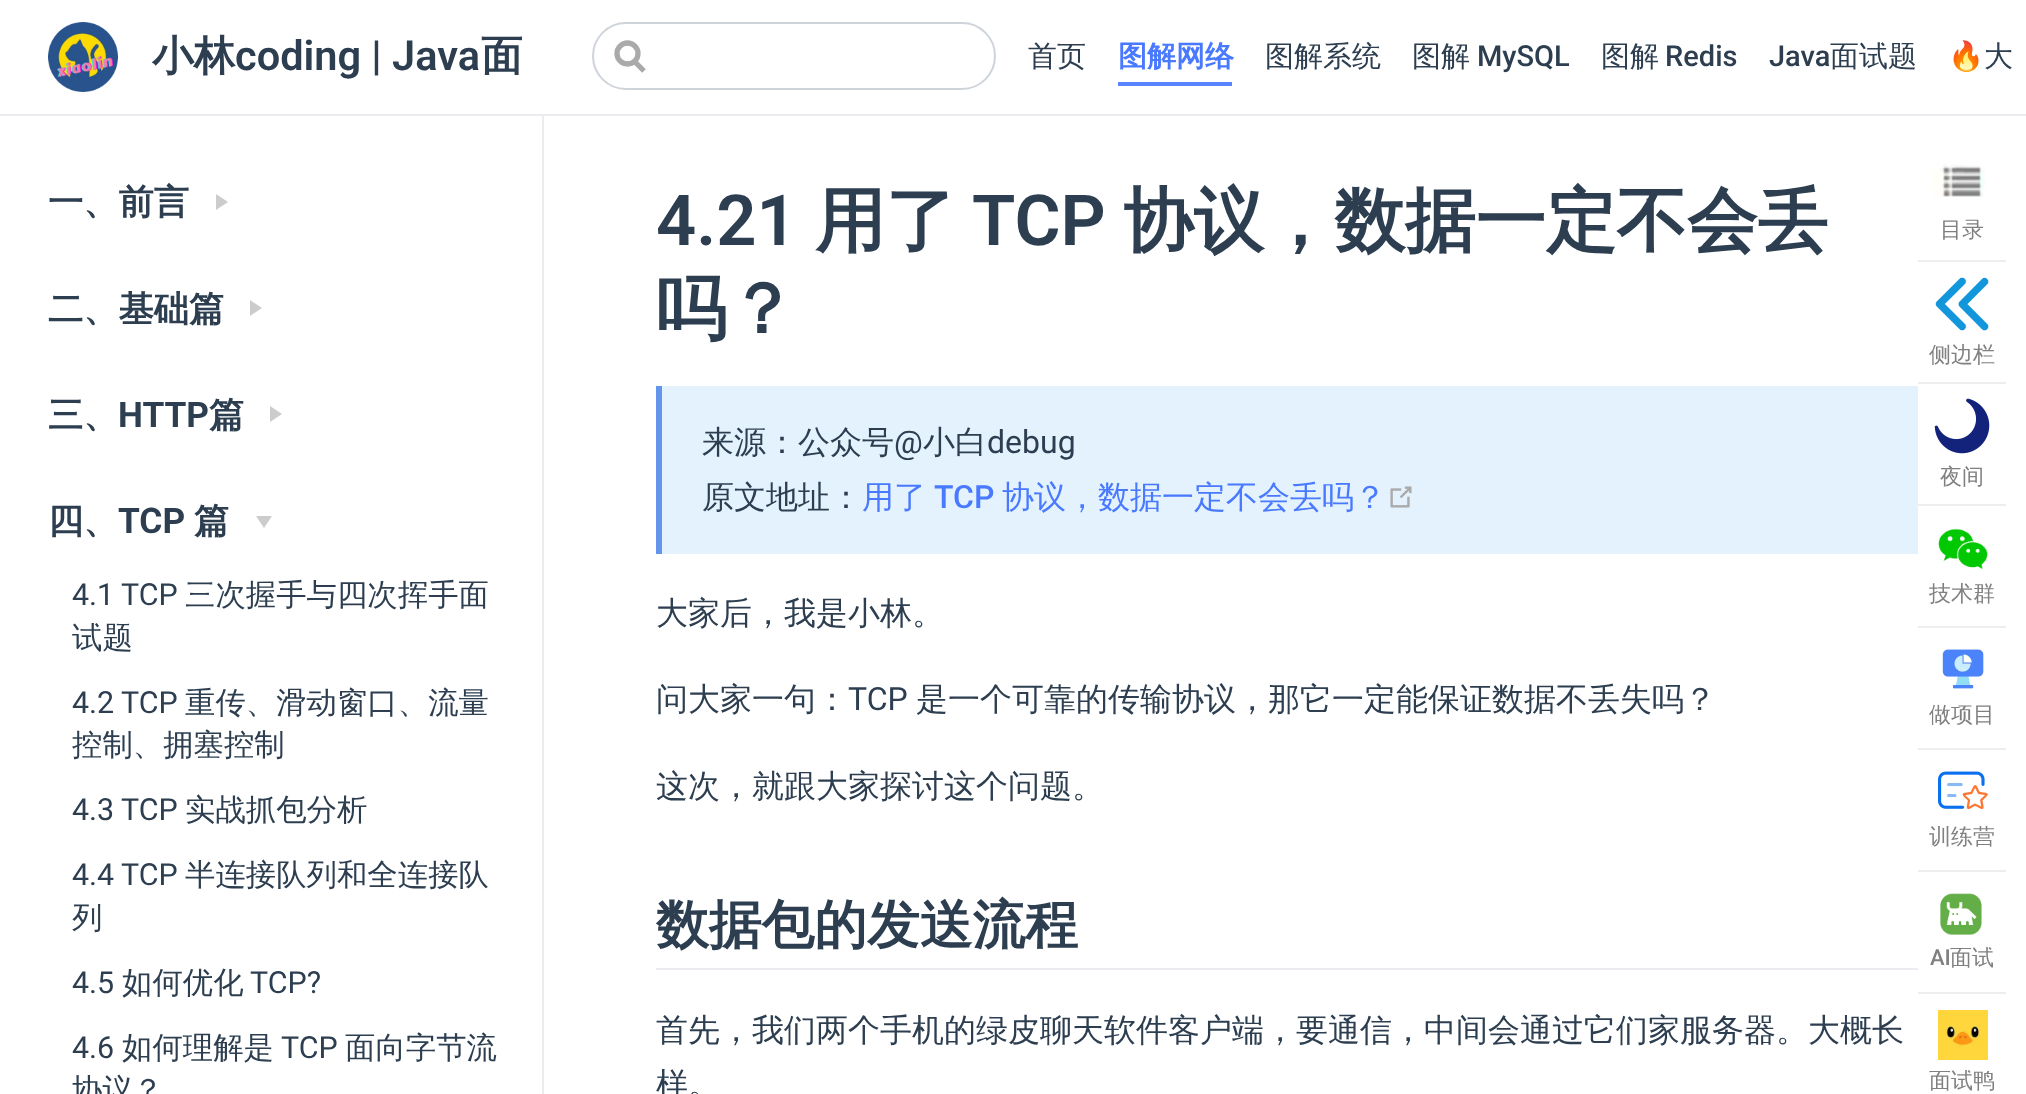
async function draw(canvas) {
	canvas.width = 2026;
	canvas.height = 1094;
	const c = canvas.getContext('2d');
	c.miterLimit = 4;
	c.fontKerning = 'normal';
	async function loadImage(src) {
		const img = new Image();
		img.src = src;
		await img.decode();
		return img;
	}

	c.fillStyle = '#fff';
	c.fillRect(0, 0, 2026, 1094);
	c.fillStyle = '#eaecef';
	c.fillRect(0, 114, 2026, 2);
	c.drawImage(await loadImage('img1.png'), 48, 22, 70, 70);
	c.font = 'bold 41.5px WenQuanYi Zen Hei';
	c.fillStyle = '#2c3e50';
	c.fillText('小林', 152, 70);
	c.font = '600 41.5px Roboto';
	c.fillText('coding | Java', 235, 70);
	c.font = 'bold 41.5px WenQuanYi Zen Hei';
	c.fillText('面', 481, 70);
	c.beginPath();
	c.moveTo(644, 71);
	c.lineTo(633.5, 60.5);
	c.strokeStyle = '#aaa';
	c.lineWidth = 5.3;
	c.stroke();
	c.beginPath();
	c.arc(627.5, 53.5, 10.5, 0, 2 * Math.PI);
	c.stroke();
	c.beginPath();
	c.roundRect(593, 23, 402, 66, 33);
	c.strokeStyle = '#cfd4db';
	c.lineWidth = 2;
	c.stroke();
	c.font = '500 29px WenQuanYi Zen Hei';
	c.fillText('首页', 1028, 66);
	c.fillStyle = '#5884ff';
	c.fillRect(1118, 82, 114, 4);
	c.font = 'bold 29px WenQuanYi Zen Hei';
	c.fillStyle = '#4979ff';
	c.fillText('图解网络', 1118, 66);
	c.font = '500 29px WenQuanYi Zen Hei';
	c.fillStyle = '#2c3e50';
	c.fillText('图解系统', 1265, 66);
	c.fillText('图解', 1412, 66);
	c.font = '500 29px Roboto';
	c.fillText('MySQL', 1477, 66);
	c.font = '500 29px WenQuanYi Zen Hei';
	c.fillText('图解', 1601, 66);
	c.font = '500 29px Roboto';
	c.fillText('Redis', 1665, 66);
	c.fillText('Java', 1769, 66);
	c.font = '500 29px WenQuanYi Zen Hei';
	c.fillText('面试题', 1830, 66);
	c.font = '29px Noto Color Emoji';
	c.fillText('🔥', 1948, 66);
	c.font = '500 29px WenQuanYi Zen Hei';
	c.fillText('大', 1984, 66);
	c.fillStyle = '#eaecef';
	c.fillRect(542, 116, 2, 978);
	c.font = 'bold 35.25px WenQuanYi Zen Hei';
	c.fillStyle = '#2c3e50';
	c.fillText('一、前言', 48, 214);
	c.fillStyle = '#ccc';
	c.beginPath();
	c.moveTo(216, 210);
	c.lineTo(216, 194);
	c.lineTo(228, 202);
	c.closePath();
	c.fill();
	c.fillStyle = '#2c3e50';
	c.fillText('二、基础篇', 48, 321);
	c.fillStyle = '#ccc';
	c.beginPath();
	c.moveTo(250, 316);
	c.lineTo(250, 300);
	c.lineTo(262, 308);
	c.closePath();
	c.fill();
	c.fillStyle = '#2c3e50';
	c.fillText('三、', 48, 427);
	c.font = 'bold 35.25px Roboto';
	c.fillText('HTTP', 118, 427);
	c.font = 'bold 35.25px WenQuanYi Zen Hei';
	c.fillText('篇', 209, 427);
	c.fillStyle = '#ccc';
	c.beginPath();
	c.moveTo(270, 422);
	c.lineTo(270, 406);
	c.lineTo(282, 414);
	c.closePath();
	c.fill();
	c.fillStyle = '#2c3e50';
	c.fillText('四、', 48, 533);
	c.font = 'bold 35.25px Roboto';
	c.fillText('TCP', 118, 533);
	c.font = 'bold 35.25px WenQuanYi Zen Hei';
	c.fillText('篇', 194, 533);
	c.fillStyle = '#ccc';
	c.beginPath();
	c.moveTo(256, 516);
	c.lineTo(272, 516);
	c.lineTo(264, 528);
	c.closePath();
	c.fill();
	c.font = '30.4px Roboto';
	c.fillStyle = '#2c3e50';
	c.fillText('4.1 TCP', 72, 605);
	c.font = '500 30.4px WenQuanYi Zen Hei';
	c.fillText('三次握手与四次挥手面', 185, 605);
	c.fillText('试题', 72, 648);
	c.font = '30.4px Roboto';
	c.fillText('4.2 TCP', 72, 713);
	c.font = '500 30.4px WenQuanYi Zen Hei';
	c.fillText('重传、滑动窗口、流量', 185, 713);
	c.fillText('控制、拥塞控制', 72, 755);
	c.font = '30.4px Roboto';
	c.fillText('4.3 TCP', 72, 820);
	c.font = '500 30.4px WenQuanYi Zen Hei';
	c.fillText('实战抓包分析', 185, 820);
	c.font = '30.4px Roboto';
	c.fillText('4.4 TCP', 72, 885);
	c.font = '500 30.4px WenQuanYi Zen Hei';
	c.fillText('半连接队列和全连接队', 185, 885);
	c.fillText('列', 72, 928);
	c.font = '30.4px Roboto';
	c.fillText('4.5', 72, 993);
	c.font = '500 30.4px WenQuanYi Zen Hei';
	c.fillText('如何优化', 122, 993);
	c.font = '30.4px Roboto';
	c.fillText('TCP?', 250, 993);
	c.fillText('4.6', 72, 1058);
	c.font = '500 30.4px WenQuanYi Zen Hei';
	c.fillText('如何理解是', 122, 1058);
	c.font = '30.4px Roboto';
	c.fillText('TCP', 281, 1058);
	c.font = '500 30.4px WenQuanYi Zen Hei';
	c.fillText('面向字节流', 345, 1058);
	c.fillText('协议？', 72, 1100);
	c.font = '600 70.5px Roboto';
	c.fillText('4.21', 656, 245);
	c.font = 'bold 70.5px WenQuanYi Zen Hei';
	c.fillText('用了', 815, 245);
	c.font = '600 70.5px Roboto';
	c.fillText('TCP', 972, 245);
	c.font = 'bold 70.5px WenQuanYi Zen Hei';
	c.fillText('协议，数据一定不会丢', 1123, 245);
	c.fillText('吗？', 656, 333);
	c.fillStyle = '#e3f2fd';
	c.fillRect(662, 386, 1256, 168);
	c.fillStyle = '#6495ed';
	c.fillRect(656, 386, 6, 168);
	c.font = '500 32px WenQuanYi Zen Hei';
	c.fillStyle = '#2c3e50';
	c.fillText('来源：公众号', 702, 453);
	c.font = '32px Roboto';
	c.fillText('@', 894, 453);
	c.font = '500 32px WenQuanYi Zen Hei';
	c.fillText('小白', 923, 453);
	c.font = '32px Roboto';
	c.fillText('debug', 987, 453);
	c.font = '500 32px WenQuanYi Zen Hei';
	c.fillText('原文地址：', 702, 508);
	c.fillStyle = '#4979ff';
	c.fillText('用了', 862, 508);
	c.font = '500 32px Roboto';
	c.fillText('TCP', 934, 508);
	c.font = '500 32px WenQuanYi Zen Hei';
	c.fillText('协议，数据一定不会丢吗？', 1002, 508);
	c.drawImage(await loadImage('img2.png'), 1390, 486, 22, 22);
	c.fillStyle = '#2c3e50';
	c.fillText('大家后，我是小林。', 656, 624);
	c.fillText('问大家一句：', 656, 710);
	c.font = '32px Roboto';
	c.fillText('TCP', 848, 710);
	c.font = '500 32px WenQuanYi Zen Hei';
	c.fillText('是一个可靠的传输协议，那它一定能保证数据不丢失吗？', 916, 710);
	c.fillText('这次，就跟大家探讨这个问题。', 656, 797);
	c.fillStyle = '#eaecef';
	c.fillRect(656, 968, 1262, 2);
	c.font = 'bold 52.75px WenQuanYi Zen Hei';
	c.fillStyle = '#2c3e50';
	c.fillText('数据包的发送流程', 656, 943);
	c.font = '500 32px WenQuanYi Zen Hei';
	c.fillText('首先，我们两个手机的绿皮聊天软件客户端，要通信，中间会通过它们家服务器。大概长', 656, 1041);
	c.fillText('样。', 656, 1095);
	c.fillStyle = '#eee';
	c.fillRect(1918, 260, 88, 2);
	c.drawImage(await loadImage('img3.png'), 1932, 164, 54, 33);
	c.font = '500 22px WenQuanYi Zen Hei';
	c.fillStyle = '#808080';
	c.fillText('目录', 1940, 237);
	c.fillStyle = '#eee';
	c.fillRect(1918, 382, 88, 2);
	c.drawImage(await loadImage('img4.png'), 1935, 277, 54, 54);
	c.fillStyle = '#808080';
	c.fillText('侧边栏', 1929, 362);
	c.fillStyle = '#eee';
	c.fillRect(1918, 504, 88, 2);
	c.drawImage(await loadImage('img5.png'), 1934, 398, 56, 56);
	c.fillStyle = '#808080';
	c.fillText('夜间', 1940, 484);
	c.fillStyle = '#eee';
	c.fillRect(1918, 626, 88, 2);
	c.drawImage(await loadImage('img6.png'), 1938, 528, 50, 42);
	c.fillStyle = '#808080';
	c.fillText('技术群', 1929, 601);
	c.fillStyle = '#eee';
	c.fillRect(1918, 748, 88, 2);
	c.drawImage(await loadImage('img7.png'), 1942, 649, 42, 40);
	c.fillStyle = '#808080';
	c.fillText('做项目', 1929, 722);
	c.fillStyle = '#eee';
	c.fillRect(1918, 870, 88, 2);
	c.drawImage(await loadImage('img8.png'), 1938, 771, 50, 39);
	c.fillStyle = '#808080';
	c.fillText('训练营', 1929, 844);
	c.fillStyle = '#eee';
	c.fillRect(1918, 992, 88, 2);
	c.drawImage(await loadImage('img9.png'), 1940, 893, 42, 42);
	c.font = '500 22px Roboto';
	c.fillStyle = '#808080';
	c.fillText('AI', 1930, 965);
	c.font = '500 22px WenQuanYi Zen Hei';
	c.fillText('面试', 1950, 965);
	c.drawImage(await loadImage('img10.png'), 1938, 1010, 50, 50);
	c.fillText('面试鸭', 1929, 1088);
}

draw(document.querySelector('canvas'));
